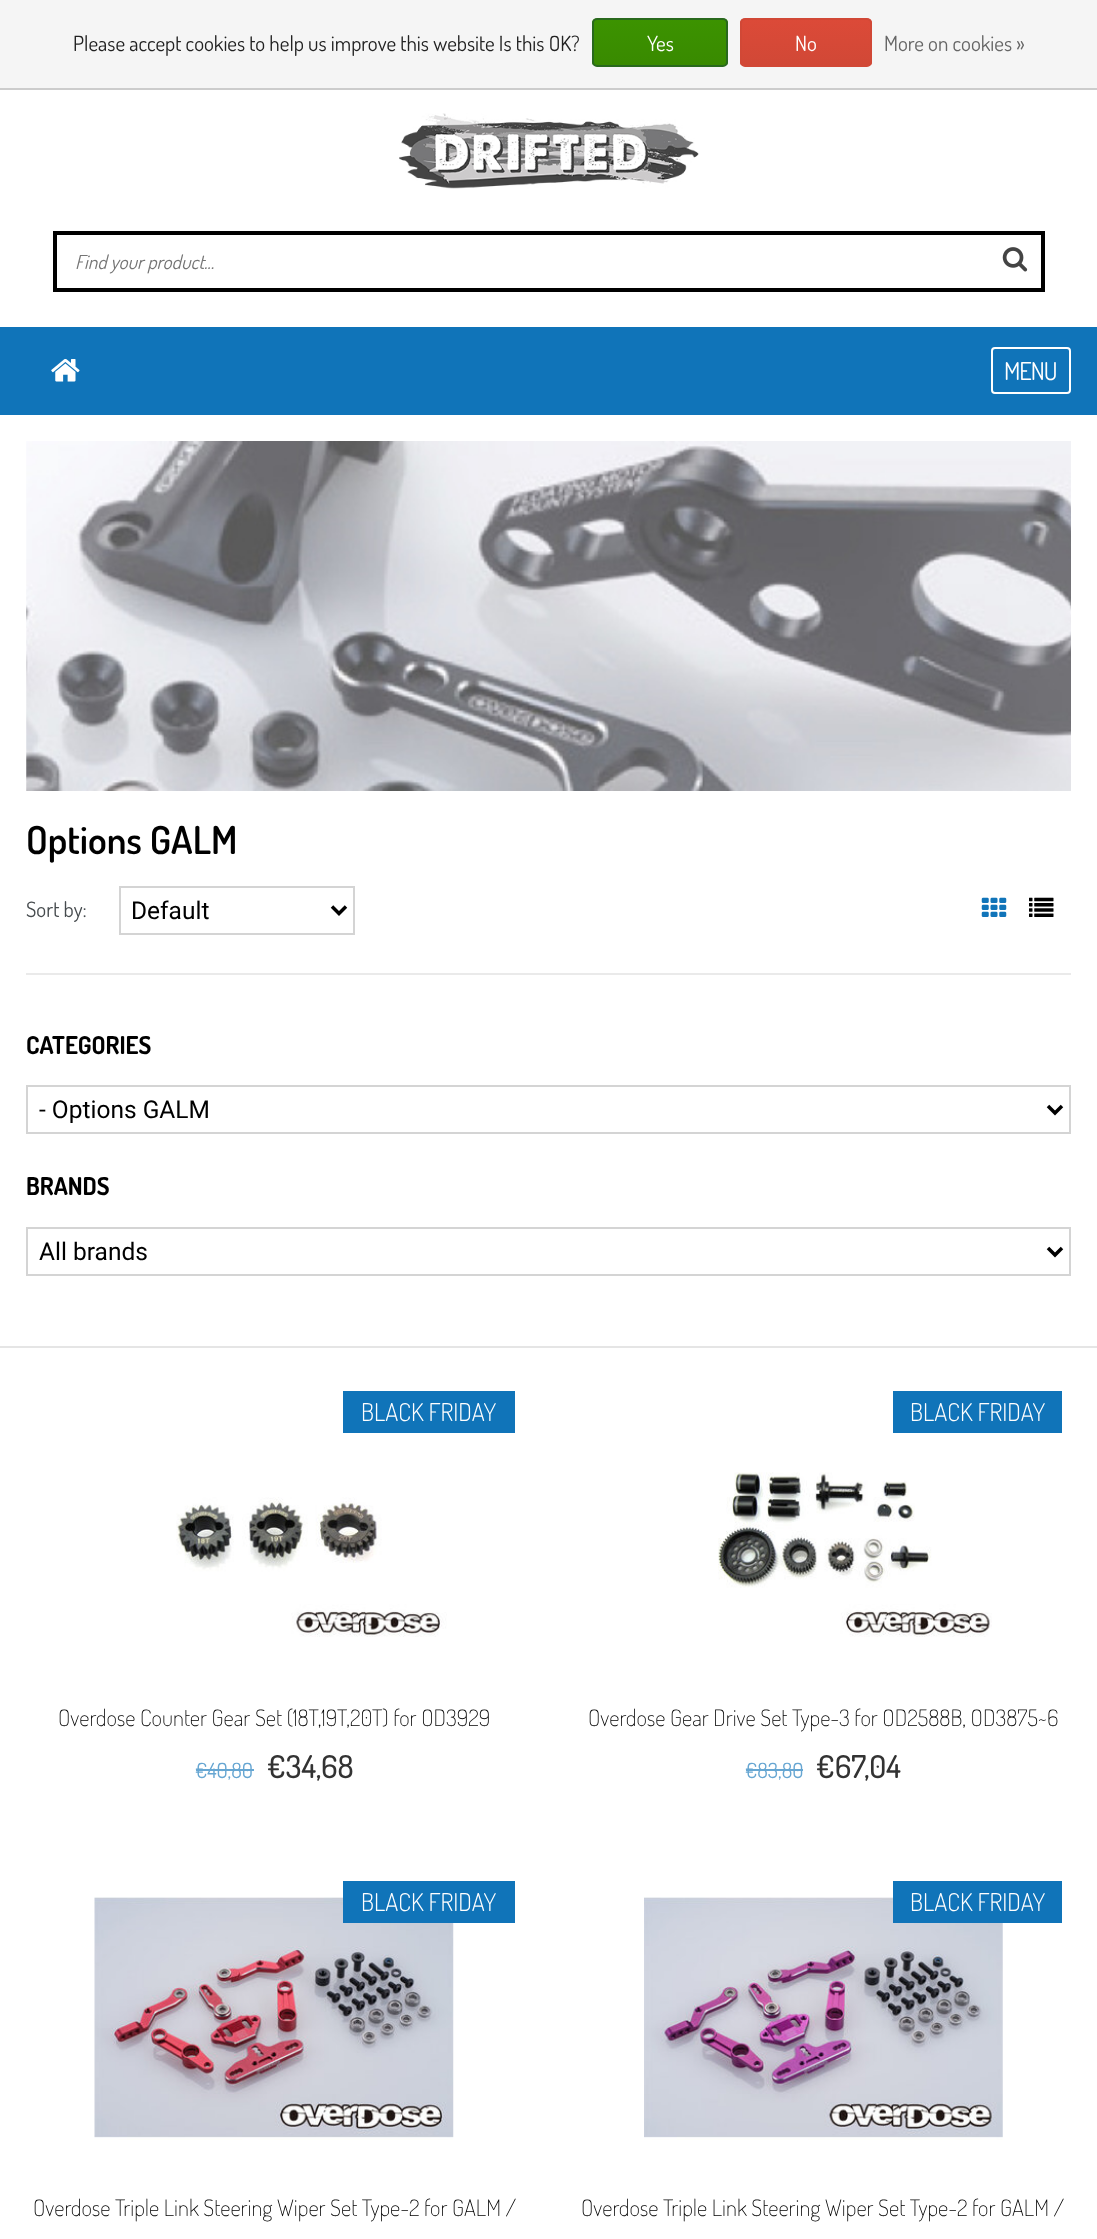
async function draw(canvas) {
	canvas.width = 1097;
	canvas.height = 2239;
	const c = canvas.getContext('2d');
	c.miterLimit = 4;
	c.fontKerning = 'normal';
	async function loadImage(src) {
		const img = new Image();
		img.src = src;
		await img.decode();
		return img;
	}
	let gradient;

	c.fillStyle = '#fff';
	c.fillRect(0, 0, 1097, 2239);
	c.fillStyle = '#f5f5f5';
	c.fillRect(0, 0, 1097, 88);
	c.fillStyle = '#ccc';
	c.fillRect(0, 88, 1097, 2);
	c.font = '21px Dosis';
	c.fillStyle = '#222';
	c.fillText('Please accept cookies to help us improve this website Is this OK?', 73, 51);
	c.save();
	c.beginPath();
	c.roundRect(592, 18, 136, 49, 5);
	c.clip();
	gradient = c.createLinearGradient(660, 19, 660, 65);
	gradient.addColorStop(0, '#3c9300');
	gradient.addColorStop(1, '#398a00');
	c.fillStyle = gradient;
	c.fillRect(592, 19, 136, 46);
	c.restore();
	c.beginPath();
	c.roundRect(593, 19, 134, 47, 4);
	c.strokeStyle = '#29691d';
	c.lineWidth = 2;
	c.stroke();
	c.fillStyle = '#fff';
	c.fillText('Yes', 647, 51);
	c.save();
	c.beginPath();
	c.roundRect(740, 18, 132, 49, 5);
	c.clip();
	gradient = c.createLinearGradient(806, 19, 806, 65);
	gradient.addColorStop(0, '#dc4a38');
	gradient.addColorStop(1, '#d14836');
	c.fillStyle = gradient;
	c.fillRect(740, 19, 132, 46);
	c.restore();
	c.beginPath();
	c.roundRect(741, 19, 130, 47, 4);
	c.strokeStyle = '#d14836';
	c.stroke();
	c.fillText('No', 795, 51);
	c.fillStyle = '#666';
	c.fillText('More on cookies »', 884, 51);
	c.drawImage(await loadImage('img1.png'), 399, 113, 300, 76);
	c.beginPath();
	c.rect(55, 233, 988, 57);
	c.strokeStyle = '#000';
	c.lineWidth = 4;
	c.stroke();
	c.font = 'italic 19.25px Dosis';
	c.fillStyle = '#757575';
	c.fillText('Find your product...', 75, 269);
	c.drawImage(await loadImage('img2.png'), 1002, 247, 26, 25);
	c.fillStyle = '#1074b9';
	c.fillRect(0, 327, 1097, 88);
	c.drawImage(await loadImage('img3.png'), 51, 359, 29, 23);
	c.beginPath();
	c.roundRect(992, 348, 78, 45, 3);
	c.strokeStyle = '#fff';
	c.lineWidth = 2;
	c.stroke();
	c.letterSpacing = '-1px';
	c.font = '24.5px Dosis';
	c.fillStyle = '#fff';
	c.fillText('MENU', 1004, 380);
	c.drawImage(await loadImage('img4.png'), 26, 441, 1045, 350);
	c.letterSpacing = '0px';
	c.font = '600 38.5px Dosis';
	c.fillStyle = '#000';
	c.fillText('Options GALM', 26, 854);
	c.font = '21px Dosis';
	c.fillStyle = '#464b4e';
	c.fillText('Sort by:', 26, 917);
	c.strokeStyle = '#d4d4d4';
	c.strokeRect(120, 887, 234, 47);
	c.beginPath();
	c.moveTo(332, 906.5);
	c.lineTo(339, 913.5);
	c.lineTo(346, 906.5);
	c.strokeStyle = '#000';
	c.lineWidth = 3.5;
	c.stroke();
	c.font = '24.5px Roboto';
	c.fillStyle = '#000';
	c.fillText('Default', 131, 919);
	c.drawImage(await loadImage('img5.png'), 981, 897, 26, 20);
	c.drawImage(await loadImage('img6.png'), 1029, 897, 25, 20);
	c.fillStyle = '#eaeaea';
	c.fillRect(26, 973, 1045, 2);
	c.fillStyle = '#e5e5e5';
	c.fillRect(0, 1346, 1097, 2);
	c.font = 'bold 24.5px Dosis';
	c.fillStyle = '#000';
	c.fillText('CATEGORIES', 26, 1054);
	c.strokeStyle = '#d4d4d4';
	c.lineWidth = 2;
	c.strokeRect(27, 1086, 1043, 47);
	c.beginPath();
	c.moveTo(1048, 1106);
	c.lineTo(1055, 1113);
	c.lineTo(1062, 1106);
	c.strokeStyle = '#000';
	c.lineWidth = 3.5;
	c.stroke();
	c.font = '24.5px Roboto';
	c.fillText('- Options GALM', 39, 1118);
	c.font = 'bold 24.5px Dosis';
	c.fillText('BRANDS', 26, 1195);
	c.strokeStyle = '#d4d4d4';
	c.lineWidth = 2;
	c.strokeRect(27, 1228, 1043, 47);
	c.beginPath();
	c.moveTo(1048, 1248);
	c.lineTo(1055, 1255);
	c.lineTo(1062, 1248);
	c.strokeStyle = '#000';
	c.lineWidth = 3.5;
	c.stroke();
	c.font = '24.5px Roboto';
	c.fillText('All brands', 39, 1260);
	c.drawImage(await loadImage('img7.png'), 176, 1415, 271, 222);
	c.fillStyle = '#1074b9';
	c.fillRect(343, 1391, 172, 42);
	c.font = '300 24.5px Dosis';
	c.fillStyle = '#fff';
	c.fillText('BLACK FRIDAY', 361, 1421);
	c.font = '200 22.75px Dosis';
	c.fillStyle = '#000';
	c.fillText('Overdose Counter Gear Set (18T,19T,20T) for OD3929', 58, 1726);
	c.font = '21px Dosis';
	c.fillStyle = '#66a6d2';
	c.fillText('€40,80', 195, 1778);
	c.fillRect(196, 1769, 58, 2);
	c.font = '500 31.5px Dosis';
	c.fillStyle = '#333';
	c.fillText('€34,68', 267, 1778);
	c.fillStyle = '#1074b9';
	c.fillRect(893, 1391, 169, 42);
	c.font = '300 24.5px Dosis';
	c.fillStyle = '#fff';
	c.fillText('BLACK FRIDAY', 910, 1421);
	c.drawImage(await loadImage('img8.png'), 718, 1472, 274, 165);
	c.font = '200 22.75px Dosis';
	c.fillStyle = '#000';
	c.fillText('Overdose Gear Drive Set Type-3 for OD2588B, OD3875~6', 588, 1726);
	c.font = '21px Dosis';
	c.fillStyle = '#66a6d2';
	c.fillText('€83,80', 745, 1778);
	c.fillRect(746, 1769, 57, 2);
	c.font = '500 31.5px Dosis';
	c.fillStyle = '#333';
	c.fillText('€67,04', 816, 1778);
	c.drawImage(await loadImage('img9.png'), 94, 1897, 360, 243);
	c.fillStyle = '#1074b9';
	c.fillRect(343, 1881, 172, 42);
	c.font = '300 24.5px Dosis';
	c.fillStyle = '#fff';
	c.fillText('BLACK FRIDAY', 361, 1911);
	c.font = '200 22.75px Dosis';
	c.fillStyle = '#000';
	c.fillText('Overdose Triple Link Steering Wiper Set Type-2 for GALM /', 33, 2216);
	c.drawImage(await loadImage('img10.png'), 644, 1897, 359, 243);
	c.fillStyle = '#1074b9';
	c.fillRect(893, 1881, 169, 42);
	c.font = '300 24.5px Dosis';
	c.fillStyle = '#fff';
	c.fillText('BLACK FRIDAY', 910, 1911);
	c.font = '200 22.75px Dosis';
	c.fillStyle = '#000';
	c.fillText('Overdose Triple Link Steering Wiper Set Type-2 for GALM /', 581, 2216);
}

draw(document.querySelector('canvas'));
